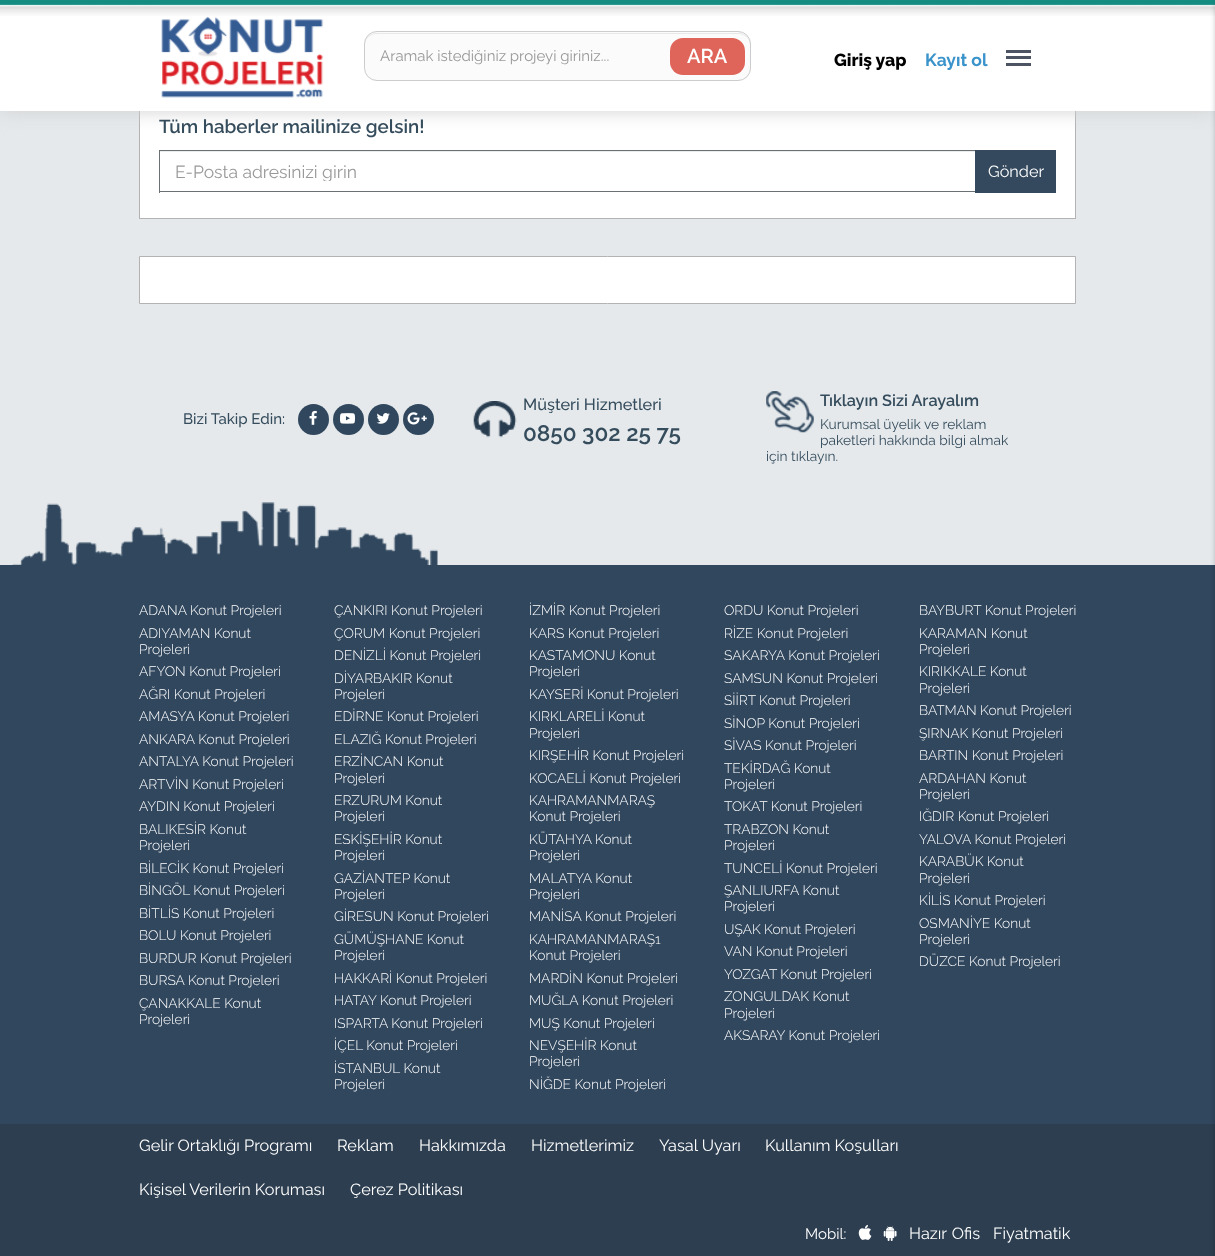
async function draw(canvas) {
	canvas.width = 1215;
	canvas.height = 1256;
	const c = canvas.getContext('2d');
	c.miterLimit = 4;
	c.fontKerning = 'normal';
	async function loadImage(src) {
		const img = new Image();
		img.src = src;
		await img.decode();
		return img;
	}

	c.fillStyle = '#e5e9ec';
	c.fillRect(0, 0, 1215, 1256);
	c.fillStyle = '#fff';
	c.fillRect(140, 111, 935, 107);
	c.strokeStyle = '#b3b3b3';
	c.strokeRect(139.5, 39.5, 936, 179);
	c.fillStyle = '#d1d1d1';
	c.filter = 'blur(9.5px)';
	c.beginPath();
	c.rect(0, 0, 1215, 111);
	c.fill();
	c.filter = 'none';
	c.fillStyle = '#fff';
	c.fillRect(0, 16, 1215, 95);
	c.drawImage(await loadImage('img1.png'), 0, 0, 1215, 16);
	c.drawImage(await loadImage('img2.png'), 161, 16, 163, 82);
	c.fillStyle = '#fcfbfb';
	c.beginPath();
	c.roundRect(364, 31, 387, 50, 13);
	c.fill();
	c.fillStyle = '#e9e8e8';
	c.beginPath();
	c.moveTo(376, 34);
	c.lineTo(739, 34);
	c.bezierCurveTo(745, 34, 750, 39, 750, 45);
	c.lineTo(750, 44);
	c.bezierCurveTo(750, 38, 745, 33, 739, 33);
	c.lineTo(376, 33);
	c.bezierCurveTo(370, 33, 365, 38, 365, 44);
	c.lineTo(365, 45);
	c.bezierCurveTo(365, 39, 370, 34, 376, 34);
	c.closePath();
	c.fill();
	c.beginPath();
	c.roundRect(364.5, 31.5, 386, 49, 12.5);
	c.strokeStyle = '#ccc';
	c.stroke();
	c.font = '15px Raleway';
	c.fillStyle = '#999';
	c.fillText('Aramak istediğiniz projeyi giriniz...', 380, 61);
	c.fillStyle = '#df6459';
	c.beginPath();
	c.roundRect(670, 38, 75, 37, 13);
	c.fill();
	c.font = '600 20px Raleway';
	c.fillStyle = '#fff';
	c.fillText('ARA', 687, 63);
	c.font = '800 17.5px Raleway';
	c.fillStyle = '#000';
	c.fillText('Giriş yap', 834, 66);
	c.font = 'bold 17.5px Raleway';
	c.fillStyle = '#3a93cb';
	c.fillText('Kayıt ol', 925, 66);
	for (const [x, y, w, h, color] of [
		[1006, 50, 25, 3, '#4c5363'],
		[1006, 56, 25, 3, '#4c5363'],
		[1006, 63, 25, 3, '#4c5363'],
		[0, 565, 1215, 559, '#31475e'],
		[0, 1124, 1215, 132, '#2d3e50'],
	]) {
		c.fillStyle = color;
		c.fillRect(x, y, w, h);
	}
	c.fillStyle = '#00000033';
	c.filter = 'blur(2.5px)';
	c.beginPath();
	c.rect(1215, 3, 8, 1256);
	c.fill();
	c.filter = 'none';
	c.font = '600 18.75px Raleway';
	c.fillStyle = '#354c5c';
	c.fillText('Tüm haberler mailinize gelsin!', 159, 133);
	for (const [x, y, w, h, color] of [
		[160, 151, 815, 1, '#ececec'],
		[159, 150, 816, 1, '#697174'],
		[159, 191, 816, 1, '#697174'],
		[159, 150, 1, 43, '#697174'],
	]) {
		c.fillStyle = color;
		c.fillRect(x, y, w, h);
	}
	c.save();
	c.beginPath();
	c.rect(175, 161, 785, 20);
	c.clip();
	c.font = '17.5px Raleway';
	c.fillStyle = '#999';
	c.fillText('E-Posta adresinizi girin', 175, 178);
	c.restore();
	c.fillStyle = '#34495e';
	c.fillRect(975, 150, 81, 43);
	c.font = '16.25px Raleway';
	c.fillStyle = '#fff';
	c.fillText('Gönder', 988, 177);
	c.beginPath();
	c.rect(139.5, 256.5, 936, 47);
	c.fill();
	c.strokeStyle = '#b3b3b3';
	c.stroke();
	c.font = '500 15px Raleway';
	c.fillStyle = '#354c5c';
	c.fillText('Bizi Takip Edin:', 183, 424);
	c.fillStyle = '#31475e';
	c.beginPath();
	c.arc(313.5, 419.5, 15.5, 0, 2 * Math.PI);
	c.fill();
	c.drawImage(await loadImage('img3.png'), 309, 410, 8, 15);
	c.beginPath();
	c.arc(348.5, 419.5, 15.5, 0, 2 * Math.PI);
	c.fill();
	c.drawImage(await loadImage('img4.png'), 340, 413, 15, 11);
	c.beginPath();
	c.arc(383.5, 419.5, 15.5, 0, 2 * Math.PI);
	c.fill();
	c.drawImage(await loadImage('img5.png'), 376, 413, 14, 11);
	c.beginPath();
	c.arc(418.5, 419.5, 15.5, 0, 2 * Math.PI);
	c.fill();
	c.drawImage(await loadImage('img6.png'), 407, 412, 20, 13);
	c.drawImage(await loadImage('img7.png'), 473, 401, 44, 37);
	c.font = '500 16.25px Raleway';
	c.fillStyle = '#354c5c';
	c.fillText('Müşteri Hizmetleri', 523, 410);
	c.font = '600 22.5px Raleway';
	c.fillText('0850 302 25 75', 523, 441);
	c.drawImage(await loadImage('img8.png'), 766, 391, 48, 42);
	c.font = '600 16.25px Raleway';
	c.fillText('Tıklayın Sizi Arayalım', 820, 406);
	c.font = '13.75px Raleway';
	for (const [text, x, y] of [
		['Kurumsal üyelik ve reklam', 820, 429],
		['paketleri hakkında bilgi almak', 820, 445],
		['için tıklayın.', 766, 461],
	]) {
		c.fillText(text, x, y);
	}
	c.drawImage(await loadImage('img9.png'), 12, 502, 426, 63);
	c.font = '300 13.75px Raleway';
	c.fillStyle = '#fff';
	for (const [text, x, y] of [
		['ADANA Konut Projeleri', 139, 615],
		['ADIYAMAN Konut', 139, 638],
		['Projeleri', 139, 654],
		['AFYON Konut Projeleri', 139, 676],
		['AĞRI Konut Projeleri', 139, 699],
		['AMASYA Konut Projeleri', 139, 721],
		['ANKARA Konut Projeleri', 139, 744],
		['ANTALYA Konut Projeleri', 139, 766],
		['ARTVİN Konut Projeleri', 139, 789],
		['AYDIN Konut Projeleri', 139, 811],
		['BALIKESİR Konut', 139, 834],
		['Projeleri', 139, 850],
		['BİLECİK Konut Projeleri', 139, 873],
		['BİNGÖL Konut Projeleri', 139, 895],
		['BİTLİS Konut Projeleri', 139, 918],
		['BOLU Konut Projeleri', 139, 940],
		['BURDUR Konut Projeleri', 139, 963],
		['BURSA Konut Projeleri', 139, 985],
		['ÇANAKKALE Konut', 139, 1008],
		['Projeleri', 139, 1024],
		['ÇANKIRI Konut Projeleri', 334, 615],
		['ÇORUM Konut Projeleri', 334, 638],
		['DENİZLİ Konut Projeleri', 334, 660],
		['DİYARBAKIR Konut', 334, 683],
		['Projeleri', 334, 699],
		['EDİRNE Konut Projeleri', 334, 721],
		['ELAZIĞ Konut Projeleri', 334, 744],
		['ERZİNCAN Konut', 334, 766],
		['Projeleri', 334, 783],
		['ERZURUM Konut', 334, 805],
		['Projeleri', 334, 821],
		['ESKİŞEHİR Konut', 334, 844],
		['Projeleri', 334, 860],
		['GAZİANTEP Konut', 334, 883],
		['Projeleri', 334, 899],
		['GİRESUN Konut Projeleri', 334, 921],
		['GÜMÜŞHANE Konut', 334, 944],
		['Projeleri', 334, 960],
		['HAKKARİ Konut Projeleri', 334, 983],
		['HATAY Konut Projeleri', 334, 1005],
		['ISPARTA Konut Projeleri', 334, 1028],
		['İÇEL Konut Projeleri', 334, 1050],
		['İSTANBUL Konut', 334, 1073],
		['Projeleri', 334, 1089],
		['İZMİR Konut Projeleri', 529, 615],
		['KARS Konut Projeleri', 529, 638],
		['KASTAMONU Konut', 529, 660],
		['Projeleri', 529, 676],
		['KAYSERİ Konut Projeleri', 529, 699],
		['KIRKLARELİ Konut', 529, 721],
		['Projeleri', 529, 738],
		['KIRŞEHİR Konut Projeleri', 529, 760],
		['KOCAELİ Konut Projeleri', 529, 783],
		['KAHRAMANMARAŞ', 529, 805],
		['Konut Projeleri', 529, 821],
		['KÜTAHYA Konut', 529, 844],
		['Projeleri', 529, 860],
		['MALATYA Konut', 529, 883],
		['Projeleri', 529, 899],
		['MANİSA Konut Projeleri', 529, 921],
		['KAHRAMANMARAŞ1', 529, 944],
		['Konut Projeleri', 529, 960],
		['MARDİN Konut Projeleri', 529, 983],
		['MUĞLA Konut Projeleri', 529, 1005],
		['MUŞ Konut Projeleri', 529, 1028],
		['NEVŞEHİR Konut', 529, 1050],
		['Projeleri', 529, 1066],
		['NİĞDE Konut Projeleri', 529, 1089],
		['ORDU Konut Projeleri', 724, 615],
		['RİZE Konut Projeleri', 724, 638],
		['SAKARYA Konut Projeleri', 724, 660],
		['SAMSUN Konut Projeleri', 724, 683],
		['SİİRT Konut Projeleri', 724, 705],
		['SİNOP Konut Projeleri', 724, 728],
		['SİVAS Konut Projeleri', 724, 750],
		['TEKİRDAĞ Konut', 724, 773],
		['Projeleri', 724, 789],
		['TOKAT Konut Projeleri', 724, 811],
		['TRABZON Konut', 724, 834],
		['Projeleri', 724, 850],
		['TUNCELİ Konut Projeleri', 724, 873],
		['ŞANLIURFA Konut', 724, 895],
		['Projeleri', 724, 911],
		['UŞAK Konut Projeleri', 724, 934],
		['VAN Konut Projeleri', 724, 956],
		['YOZGAT Konut Projeleri', 724, 979],
		['ZONGULDAK Konut', 724, 1001],
		['Projeleri', 724, 1018],
		['AKSARAY Konut Projeleri', 724, 1040],
		['BAYBURT Konut Projeleri', 919, 615],
		['KARAMAN Konut', 919, 638],
		['Projeleri', 919, 654],
		['KIRIKKALE Konut', 919, 676],
		['Projeleri', 919, 693],
		['BATMAN Konut Projeleri', 919, 715],
		['ŞIRNAK Konut Projeleri', 919, 738],
		['BARTIN Konut Projeleri', 919, 760],
		['ARDAHAN Konut', 919, 783],
		['Projeleri', 919, 799],
		['IĞDIR Konut Projeleri', 919, 821],
		['YALOVA Konut Projeleri', 919, 844],
		['KARABÜK Konut', 919, 866],
		['Projeleri', 919, 883],
		['KİLİS Konut Projeleri', 919, 905],
		['OSMANİYE Konut', 919, 928],
		['Projeleri', 919, 944],
		['DÜZCE Konut Projeleri', 919, 966],
	]) {
		c.fillText(text, x, y);
	}
	c.font = '16.25px Raleway';
	for (const [text, x, y] of [
		['Gelir Ortaklığı Programı', 139, 1151],
		['Reklam', 337, 1151],
		['Hakkımızda', 419, 1151],
		['Hizmetlerimiz', 531, 1151],
		['Yasal Uyarı', 659, 1151],
		['Kullanım Koşulları', 765, 1151],
		['Kişisel Verilerin Koruması', 139, 1195],
		['Çerez Politikası', 350, 1195],
	]) {
		c.fillText(text, x, y);
	}
	c.font = '15px Raleway';
	c.fillText('Mobil:', 805, 1239);
	c.drawImage(await loadImage('img10.png'), 858, 1224, 14, 16);
	c.drawImage(await loadImage('img11.png'), 883, 1226, 14, 15);
	c.wordSpacing = '1px';
	c.font = '16.25px Raleway';
	c.fillText('Hazır Ofis', 909, 1239);
	c.wordSpacing = '0px';
	c.fillText('Fiyatmatik', 993, 1239);
}

draw(document.querySelector('canvas'));
